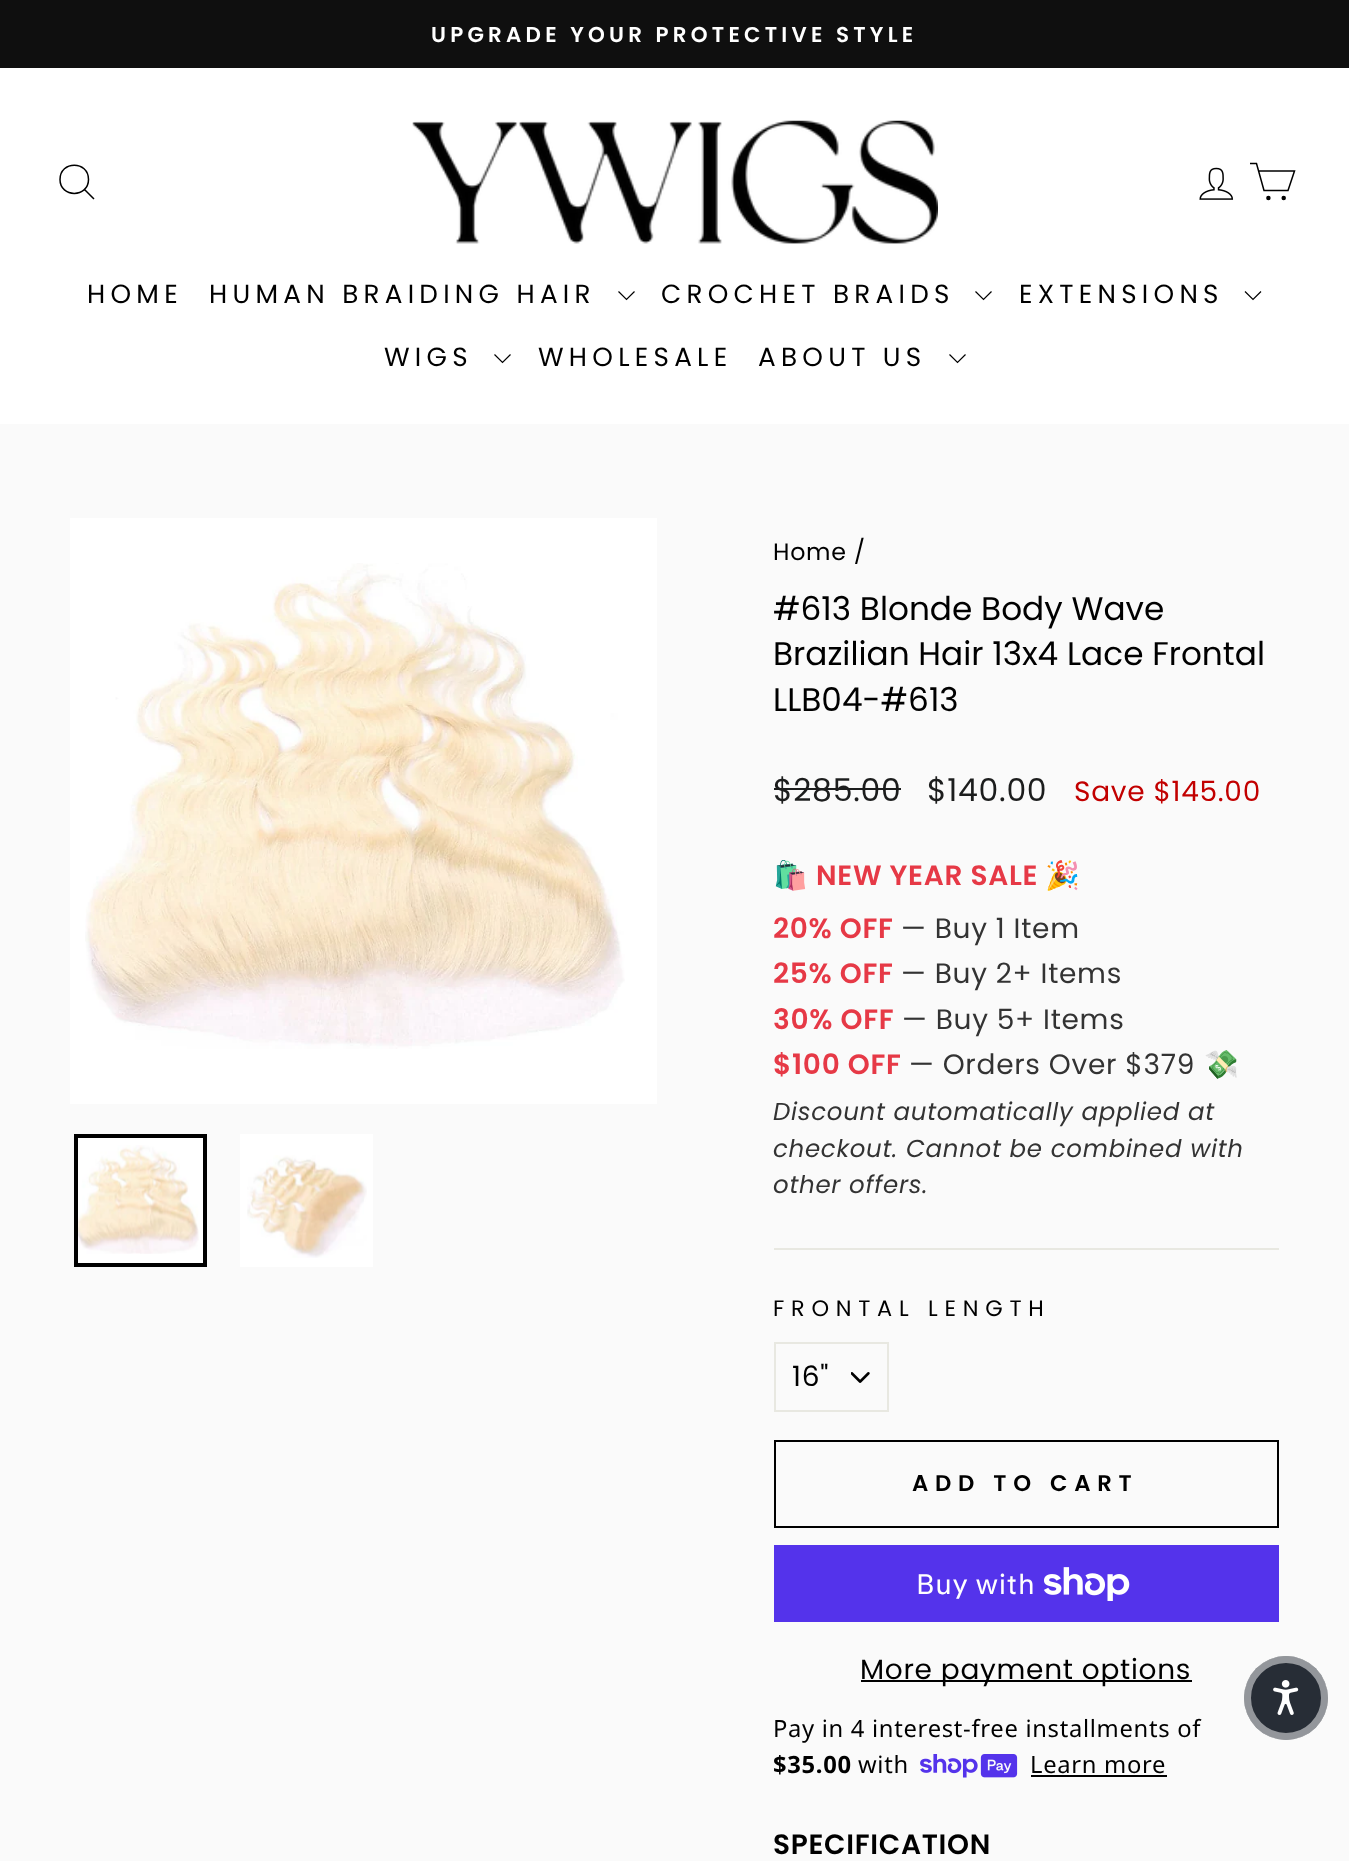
async function draw(canvas) {
	canvas.width = 1349;
	canvas.height = 1861;
	const c = canvas.getContext('2d');
	c.miterLimit = 4;
	c.fontKerning = 'normal';
	async function loadImage(src) {
		const img = new Image();
		img.src = src;
		await img.decode();
		return img;
	}

	c.fillStyle = '#fafafa';
	c.fillRect(0, 0, 1349, 1861);
	c.fillStyle = '#0f0f0f';
	c.fillRect(0, 0, 1349, 68);
	c.letterSpacing = '4.25px';
	c.font = '600 21.4px Poppins';
	c.fillStyle = '#fff';
	c.fillText('UPGRADE YOUR PROTECTIVE STYLE', 431, 42);
	c.fillRect(0, 68, 1349, 356);
	c.beginPath();
	c.moveTo(88.5, 179.5);
	c.bezierCurveTo(88.5, 198, 60, 198, 60, 179.5);
	c.bezierCurveTo(60, 160.5, 88.5, 160.5, 88.5, 179.5);
	c.closePath();
	c.moveTo(94, 199);
	c.lineTo(84.5, 189.5);
	c.strokeStyle = '#000';
	c.lineWidth = 1.5;
	c.stroke();
	c.drawImage(await loadImage('img1.png'), 412, 120, 526, 124);
	c.drawImage(await loadImage('img2.png'), 1199, 167, 35, 33);
	c.beginPath();
	c.moveTo(1258.5, 171);
	c.lineTo(1294.5, 171);
	c.lineTo(1288, 190.5);
	c.lineTo(1264, 190.5);
	c.lineTo(1256.5, 163.5);
	c.lineTo(1250, 163.5);
	c.stroke();
	c.fillStyle = '#000';
	c.beginPath();
	c.arc(1268.4, 198.1, 1.5, 0, 2 * Math.PI);
	c.fill();
	c.stroke();
	c.beginPath();
	c.arc(1283.7, 198.1, 1.5, 0, 2 * Math.PI);
	c.fill();
	c.stroke();
	c.letterSpacing = '5.25px';
	c.font = '26.25px Poppins';
	c.fillText('HOME', 87, 303);
	c.fillText('HUMAN BRAIDING HAIR', 209, 303);
	c.beginPath();
	c.moveTo(618.5, 291.5);
	c.lineTo(626.5, 299.5);
	c.lineTo(634.5, 291.5);
	c.lineWidth = 1.2;
	c.stroke();
	c.fillText('CROCHET BRAIDS', 661, 303);
	c.beginPath();
	c.moveTo(975.5, 291.5);
	c.lineTo(983.5, 299.5);
	c.lineTo(991.5, 291.5);
	c.stroke();
	c.fillText('EXTENSIONS', 1019, 303);
	c.beginPath();
	c.moveTo(1245, 291.5);
	c.lineTo(1253, 299.5);
	c.lineTo(1261, 291.5);
	c.stroke();
	c.fillText('WIGS', 384, 366);
	c.beginPath();
	c.moveTo(494.5, 354.5);
	c.lineTo(502.5, 362.5);
	c.lineTo(510.5, 354.5);
	c.stroke();
	c.fillText('WHOLESALE', 538, 366);
	c.fillText('ABOUT US', 758, 366);
	c.beginPath();
	c.moveTo(949.5, 354.5);
	c.lineTo(957.5, 362.5);
	c.lineTo(965.5, 354.5);
	c.stroke();
	c.fillStyle = '#fff';
	c.fillRect(70, 518, 587, 586);
	c.drawImage(await loadImage('img3.png'), 85, 563, 540, 486);
	c.fillRect(78, 1138, 125, 125);
	c.drawImage(await loadImage('img4.png'), 78, 1145, 121, 109);
	c.lineWidth = 4;
	c.strokeRect(76, 1136, 129, 129);
	c.fillRect(240, 1134, 133, 133);
	c.drawImage(await loadImage('img5.png'), 247, 1155, 120, 103);
	c.letterSpacing = '0.7px';
	c.font = '23.75px Poppins';
	c.fillStyle = '#000';
	c.fillText('Home /', 773, 560);
	c.letterSpacing = '0px';
	c.font = '32.75px Poppins';
	for (const [text, x, y] of [
		['#613 Blonde Body Wave', 773, 620],
		['Brazilian Hair 13x4 Lace Frontal', 773, 665],
		['LLB04-#613', 773, 711],
	]) {
		c.fillText(text, x, y);
	}
	c.letterSpacing = '0.7px';
	c.font = '31.5px Poppins';
	c.fillStyle = '#1c1d1d';
	c.fillText('$285.00', 773, 801);
	c.fillRect(774, 788, 127, 2);
	c.fillText('$140.00', 927, 801);
	c.font = '28px Poppins';
	c.fillStyle = '#c20000';
	c.fillText('Save $145.00', 1074, 801);
	c.font = 'bold 28px Noto Color Emoji';
	c.fillStyle = '#e63946';
	c.fillText('🛍️', 773, 885);
	c.font = '600 28px Poppins';
	c.fillText('NEW YEAR SALE', 816, 885);
	c.font = 'bold 28px Noto Color Emoji';
	c.fillText('🎉', 1045, 885);
	c.font = '600 28px Poppins';
	c.fillText('20% OFF', 773, 938);
	c.font = '28px Poppins';
	c.fillStyle = '#333';
	c.fillText('— Buy 1 Item', 901, 938);
	c.font = '600 28px Poppins';
	c.fillStyle = '#e63946';
	c.fillText('25% OFF', 773, 983);
	c.font = '28px Poppins';
	c.fillStyle = '#333';
	c.fillText('— Buy 2+ Items', 901, 983);
	c.font = '600 28px Poppins';
	c.fillStyle = '#e63946';
	c.fillText('30% OFF', 773, 1029);
	c.font = '28px Poppins';
	c.fillStyle = '#333';
	c.fillText('— Buy 5+ Items', 902, 1029);
	c.font = '600 28px Poppins';
	c.fillStyle = '#e63946';
	c.fillText('$100 OFF', 773, 1074);
	c.font = '28px Poppins';
	c.fillStyle = '#333';
	c.fillText('— Orders Over $379', 909, 1074);
	c.font = '28px Noto Color Emoji';
	c.fillText('💸', 1204, 1074);
	c.font = 'italic 24.5px Poppins';
	for (const [text, x, y] of [
		['Discount automatically applied at', 773, 1120],
		['checkout. Cannot be combined with', 773, 1157],
		['other offers.', 773, 1193],
	]) {
		c.fillText(text, x, y);
	}
	c.fillStyle = '#e8e8e1';
	c.fillRect(774, 1248, 505, 2);
	c.letterSpacing = '6.75px';
	c.font = '22.4px Poppins';
	c.fillStyle = '#000';
	c.fillText('FRONTAL LENGTH', 773, 1316);
	c.drawImage(await loadImage('img6.png'), 851, 1372, 19, 11);
	c.strokeStyle = '#e8e8e1';
	c.lineWidth = 2;
	c.strokeRect(775, 1343, 113, 68);
	c.letterSpacing = '0.7px';
	c.font = '28px Poppins';
	c.fillText('16"', 792, 1386);
	c.strokeStyle = '#000';
	c.strokeRect(775, 1441, 503, 86);
	c.letterSpacing = '6.75px';
	c.font = '600 22.75px Poppins';
	c.fillText('ADD TO CART', 912, 1491);
	c.fillStyle = '#5433eb';
	c.fillRect(774, 1545, 505, 77);
	c.letterSpacing = '0.7px';
	c.font = '28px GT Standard';
	c.fillStyle = '#fff';
	c.fillText('Buy with', 916, 1594);
	c.drawImage(await loadImage('img7.png'), 1044, 1567, 86, 34);
	c.fillStyle = '#000';
	c.fillRect(861, 1680, 331, 2);
	c.font = '28px Poppins';
	c.fillText('More payment options', 860, 1679);
	c.font = '23.75px Noto Sans';
	c.fillText('Pay in 4 interest-free installments of', 773, 1737);
	c.font = 'bold 23.75px Noto Sans';
	c.fillText('$35.00', 773, 1773);
	c.font = '23.75px Noto Sans';
	c.fillText('with', 858, 1773);
	c.drawImage(await loadImage('img8.png'), 920, 1754, 98, 24);
	c.fillText('Learn more', 1030, 1773);
	c.fillRect(1031, 1775, 136, 2);
	c.font = '600 28px Poppins';
	c.fillText('SPECIFICATION', 773, 1854);
	c.fillStyle = '#272d36';
	c.beginPath();
	c.arc(1286, 1698, 42, 0, 2 * Math.PI);
	c.fill();
	c.beginPath();
	c.arc(1286, 1698, 38.5, 0, 2 * Math.PI);
	c.strokeStyle = '#ffffff80';
	c.lineWidth = 7;
	c.stroke();
	c.drawImage(await loadImage('img9.png'), 1273, 1680, 26, 35);
}

draw(document.querySelector('canvas'));
